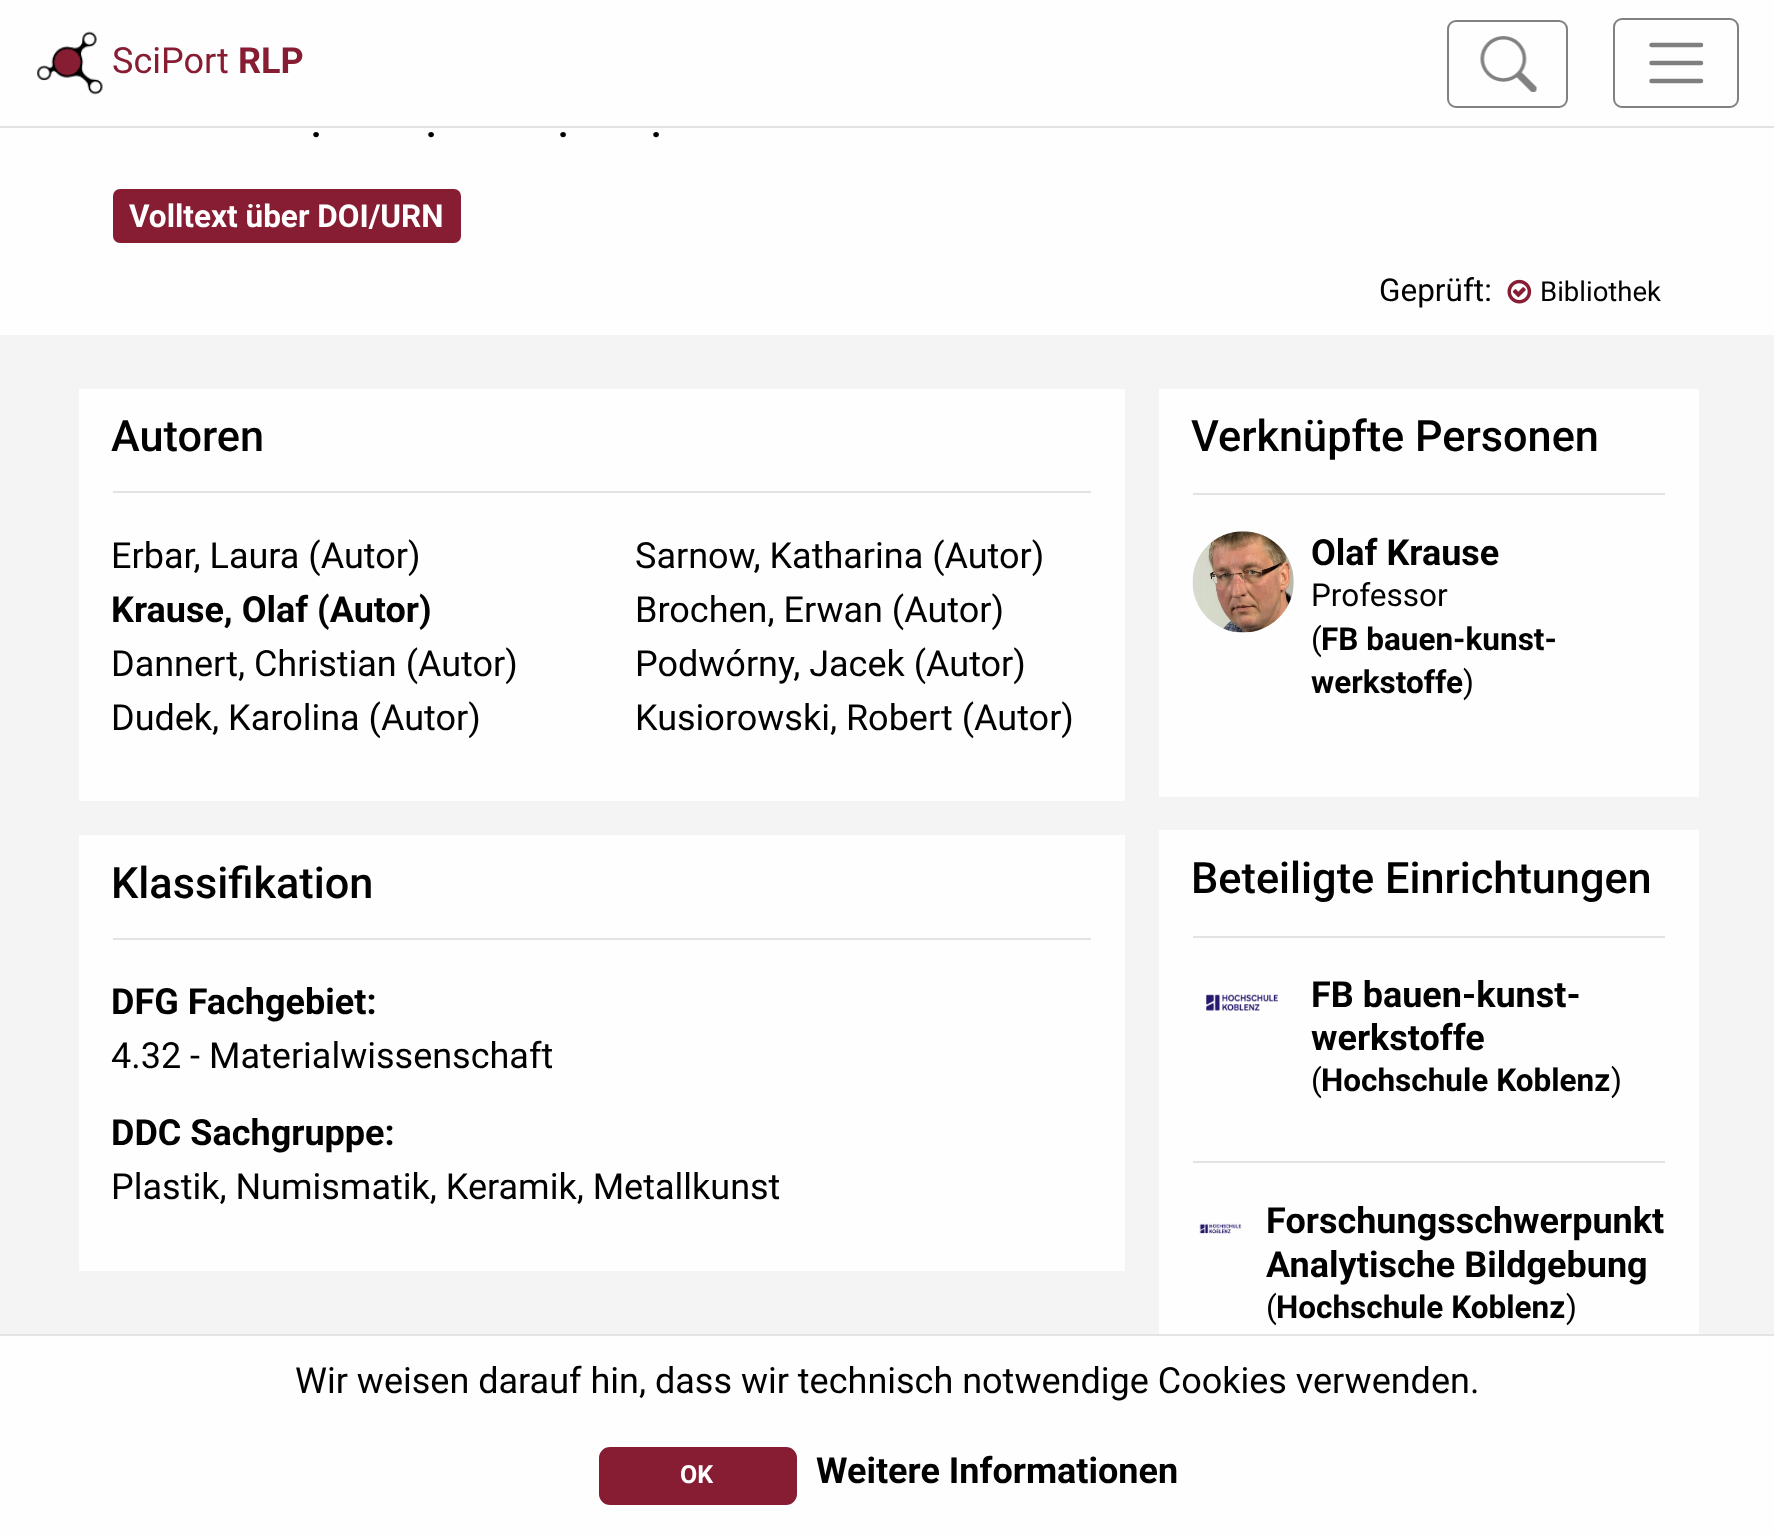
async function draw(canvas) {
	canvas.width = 1774;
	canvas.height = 1534;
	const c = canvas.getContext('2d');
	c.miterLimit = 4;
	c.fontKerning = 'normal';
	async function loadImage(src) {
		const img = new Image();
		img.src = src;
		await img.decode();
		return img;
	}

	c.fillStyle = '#f4f4f4';
	c.fillRect(0, 0, 1774, 1534);
	c.fillStyle = '#fefefe';
	c.fillRect(0, 0, 1774, 126);
	c.fillStyle = '#e3e3e3';
	c.fillRect(0, 126, 1774, 2);
	c.drawImage(await loadImage('img1.png'), 37, 31, 66, 64);
	c.font = '36px Roboto';
	c.fillStyle = '#871d33';
	c.fillText('SciPort', 112, 73);
	c.font = 'bold 36px Roboto';
	c.fillText('RLP', 238, 73);
	c.beginPath();
	c.roundRect(1448, 21, 119, 86, 8);
	c.strokeStyle = '#818181';
	c.lineWidth = 2;
	c.stroke();
	c.drawImage(await loadImage('img2.png'), 1480, 36, 57, 56);
	c.beginPath();
	c.roundRect(1614, 19, 124, 88, 8);
	c.stroke();
	c.beginPath();
	c.moveTo(1651.5, 45);
	c.lineTo(1701, 45);
	c.moveTo(1651.5, 63);
	c.lineTo(1701, 63);
	c.moveTo(1651.5, 81);
	c.lineTo(1701, 81);
	c.strokeStyle = '#7f7f7f';
	c.lineWidth = 4.5;
	c.lineCap = 'round';
	c.stroke();
	c.fillStyle = '#fefefe';
	c.fillRect(0, 128, 1774, 207);
	c.fillStyle = '#010101';
	for (const [text, x, y] of [
		['.', 311, 137],
		['.', 426, 137],
		['.', 558, 137],
		['.', 651, 137],
	]) {
		c.fillText(text, x, y);
	}
	c.fillStyle = '#871d33';
	c.beginPath();
	c.roundRect(113, 189, 348, 54, 7);
	c.fill();
	c.font = 'bold 31.5px Roboto';
	c.fillStyle = '#fff';
	c.fillText('Volltext über DOI/URN', 129, 227);
	c.font = '31.5px Roboto';
	c.fillStyle = '#010101';
	c.fillText('Geprüft:', 1379, 301);
	c.drawImage(await loadImage('img3.png'), 1507, 279, 25, 25);
	c.font = '27.5px Roboto';
	c.fillText('Bibliothek', 1540, 301);
	c.fillStyle = '#fefefe';
	c.fillRect(79, 389, 1046, 412);
	c.font = '500 43.25px Roboto';
	c.fillStyle = '#010101';
	c.fillText('Autoren', 111, 451);
	c.fillStyle = '#e3e3e3';
	c.fillRect(113, 491, 978, 2);
	c.font = '36px Roboto';
	c.fillStyle = '#010101';
	c.fillText('Erbar, Laura (Autor)', 111, 568);
	c.fillText('Sarnow, Katharina (Autor)', 635, 568);
	c.font = 'bold 36px Roboto';
	c.fillText('Krause, Olaf (Autor)', 111, 622);
	c.font = '36px Roboto';
	for (const [text, x, y] of [
		['Brochen, Erwan (Autor)', 635, 622],
		['Dannert, Christian (Autor)', 111, 676],
		['Podwórny, Jacek (Autor)', 635, 676],
		['Dudek, Karolina (Autor)', 111, 730],
		['Kusiorowski, Robert (Autor)', 635, 730],
	]) {
		c.fillText(text, x, y);
	}
	c.fillStyle = '#fefefe';
	c.fillRect(79, 835, 1046, 436);
	c.font = '500 43.25px Roboto';
	c.fillStyle = '#010101';
	c.fillText('Klassifikation', 111, 898);
	c.fillStyle = '#e3e3e3';
	c.fillRect(113, 938, 978, 2);
	c.font = 'bold 36px Roboto';
	c.fillStyle = '#010101';
	c.fillText('DFG Fachgebiet:', 111, 1014);
	c.font = '36px Roboto';
	c.fillText('4.32 - Materialwissenschaft', 111, 1068);
	c.font = 'bold 36px Roboto';
	c.fillText('DDC Sachgruppe:', 111, 1145);
	c.font = '36px Roboto';
	c.fillText('Plastik, Numismatik, Keramik, Metallkunst', 111, 1199);
	c.fillStyle = '#fefefe';
	c.fillRect(1159, 389, 540, 408);
	c.font = '500 43.25px Roboto';
	c.fillStyle = '#010101';
	c.fillText('Verknüpfte Personen', 1191, 451);
	c.fillStyle = '#e3e3e3';
	c.fillRect(1193, 493, 472, 2);
	c.drawImage(await loadImage('img4.png'), 1192, 531, 102, 102);
	c.font = 'bold 36px Roboto';
	c.fillStyle = '#010101';
	c.fillText('Olaf Krause', 1311, 565);
	c.font = '31.5px Roboto';
	c.fillText('Professor', 1311, 606);
	c.fillText('(', 1311, 650);
	c.font = 'bold 31.5px Roboto';
	c.fillText('FB bauen-kunst-', 1321, 650);
	c.fillText('werkstoffe', 1311, 693);
	c.font = '31.5px Roboto';
	c.fillText(')', 1463, 693);
	c.fillStyle = '#fefefe';
	c.fillRect(1159, 830, 540, 504);
	c.font = '500 43.25px Roboto';
	c.fillStyle = '#010101';
	c.fillText('Beteiligte Einrichtungen', 1191, 893);
	c.fillStyle = '#e3e3e3';
	c.fillRect(1193, 936, 472, 2);
	c.drawImage(await loadImage('img5.png'), 1206, 994, 72, 17);
	c.font = 'bold 36px Roboto';
	c.fillStyle = '#010101';
	c.fillText('FB bauen-kunst-', 1311, 1007);
	c.fillText('werkstoffe', 1311, 1050);
	c.font = '31.5px Roboto';
	c.fillText('(', 1311, 1091);
	c.font = 'bold 31.5px Roboto';
	c.fillText('Hochschule Koblenz', 1321, 1091);
	c.font = '31.5px Roboto';
	c.fillText(')', 1611, 1091);
	c.fillStyle = '#e3e3e3';
	c.fillRect(1193, 1161, 472, 2);
	c.drawImage(await loadImage('img6.png'), 1199, 1223, 43, 11);
	c.font = 'bold 36px Roboto';
	c.fillStyle = '#010101';
	c.fillText('Forschungsschwerpunkt', 1266, 1233);
	c.fillText('Analytische Bildgebung', 1266, 1277);
	c.font = '31.5px Roboto';
	c.fillText('(', 1266, 1318);
	c.font = 'bold 31.5px Roboto';
	c.fillText('Hochschule Koblenz', 1276, 1318);
	c.font = '31.5px Roboto';
	c.fillText(')', 1566, 1318);
	c.fillStyle = '#fefefe';
	c.fillRect(0, 1336, 1774, 198);
	c.fillStyle = '#e4e4e4';
	c.fillRect(0, 1334, 1774, 2);
	c.font = '36px Roboto';
	c.fillStyle = '#010101';
	c.fillText('Wir weisen darauf hin, dass wir technisch notwendige Cookies verwenden.', 295, 1393);
	c.fillStyle = '#871d33';
	c.beginPath();
	c.roundRect(600, 1448, 196, 56, 10);
	c.fill();
	c.strokeStyle = '#871d33';
	c.lineWidth = 2;
	c.stroke();
	c.font = 'bold 25px Roboto';
	c.fillStyle = '#fff';
	c.fillText('OK', 680, 1483);
	c.font = 'bold 36px Roboto';
	c.fillStyle = '#010101';
	c.fillText('Weitere Informationen', 816, 1483);
}

draw(document.querySelector('canvas'));
